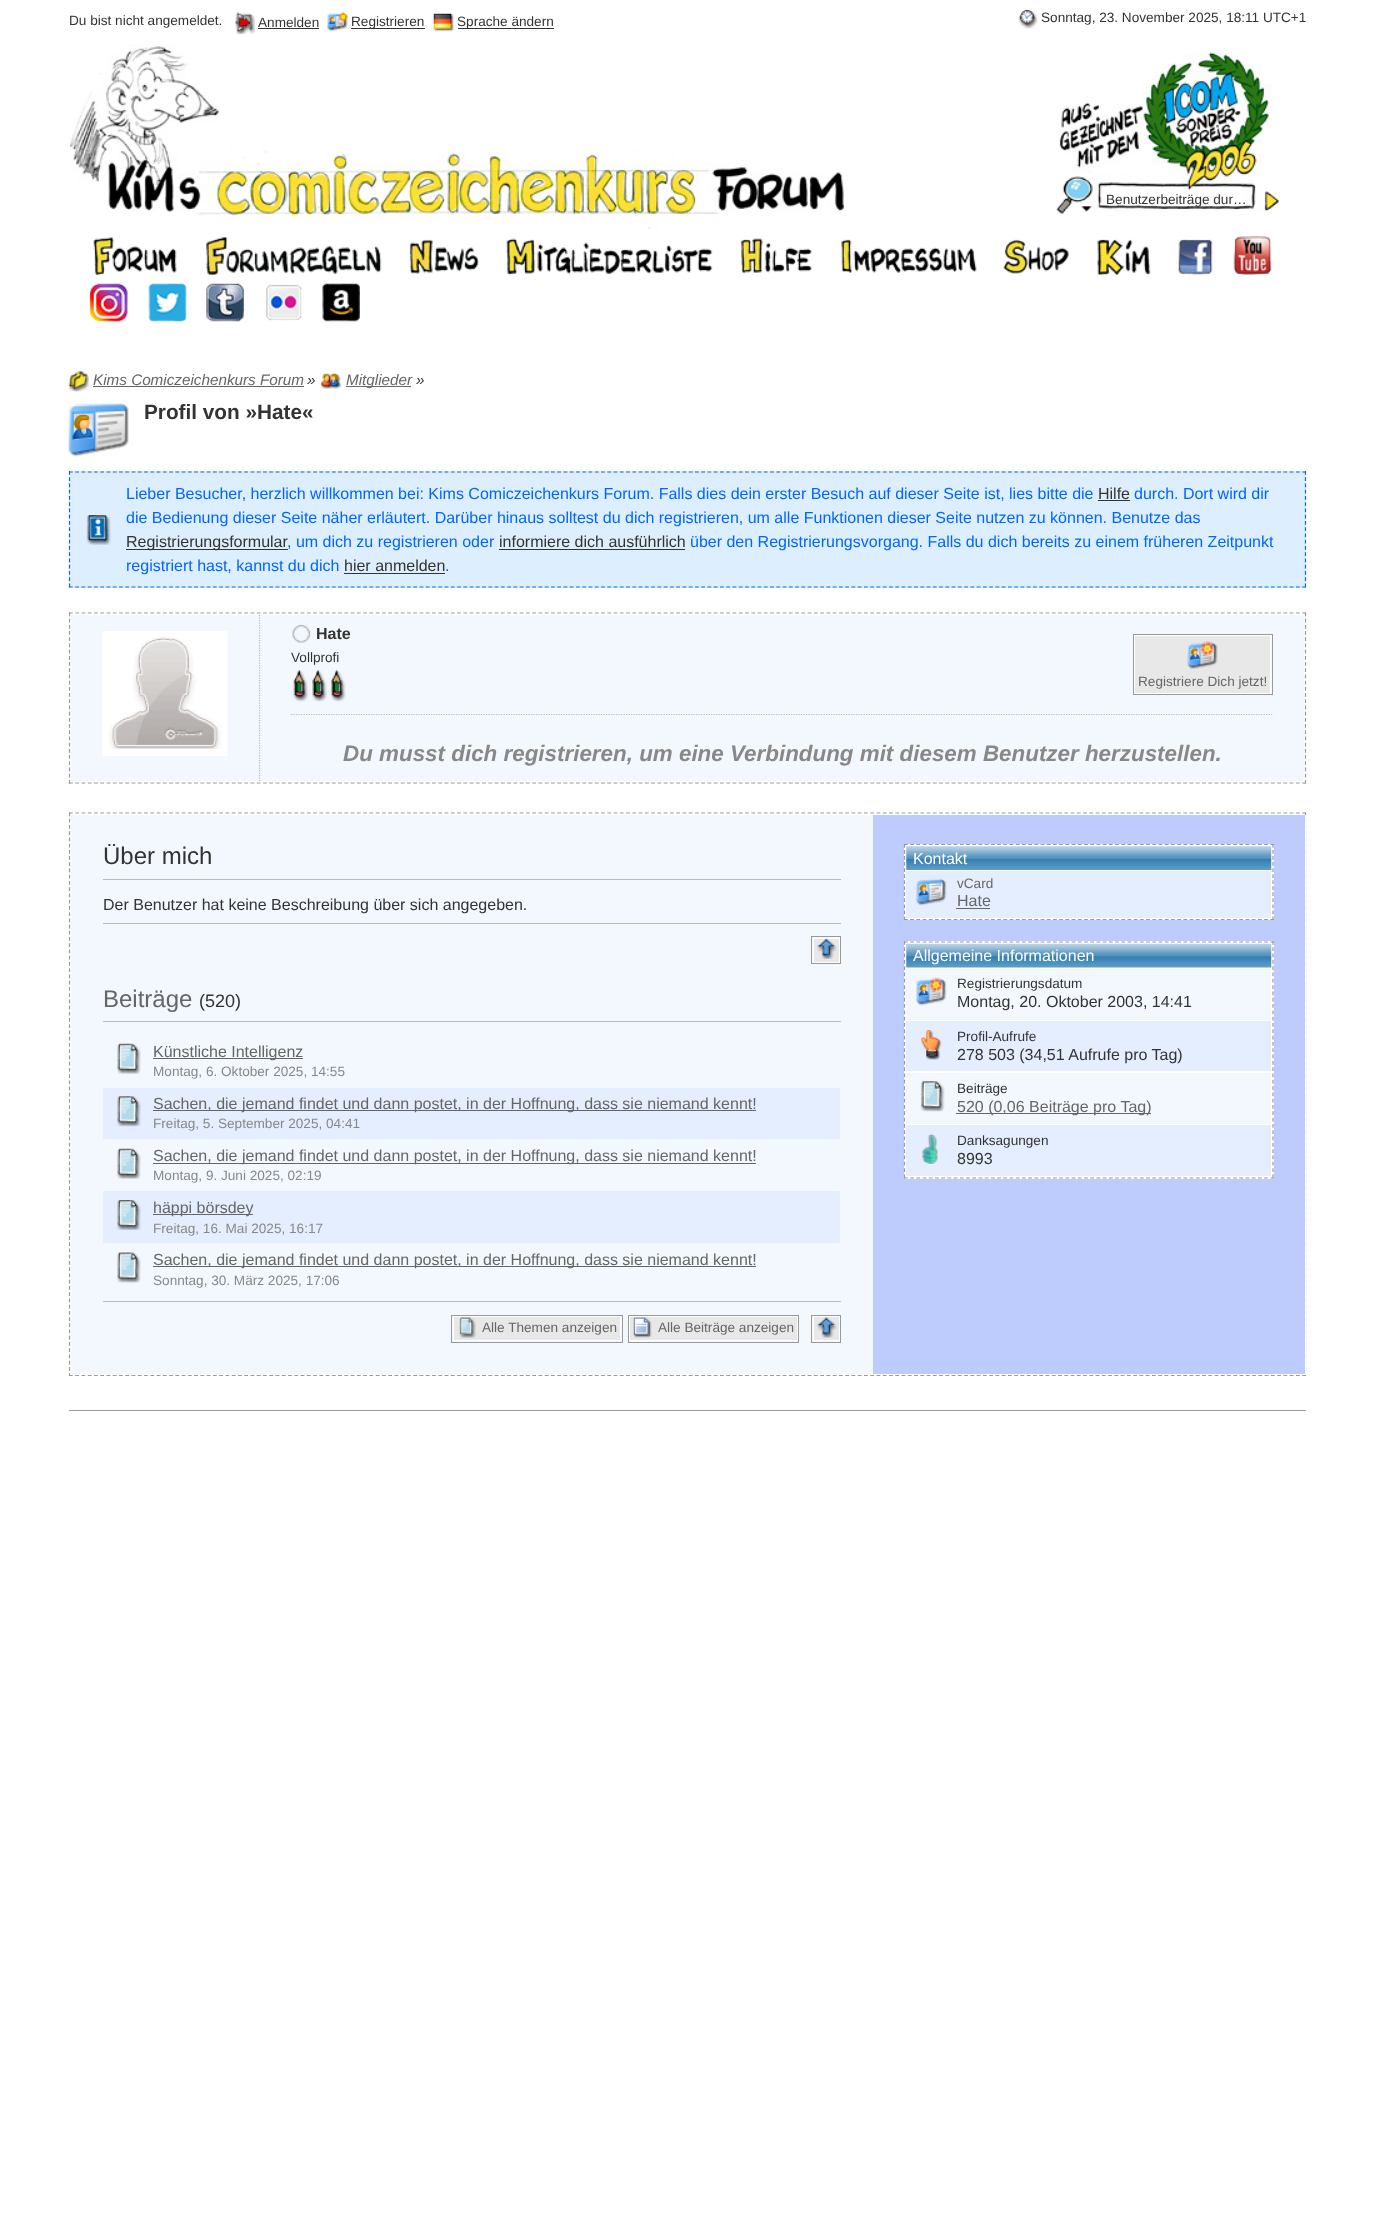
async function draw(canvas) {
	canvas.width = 1375;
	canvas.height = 2230;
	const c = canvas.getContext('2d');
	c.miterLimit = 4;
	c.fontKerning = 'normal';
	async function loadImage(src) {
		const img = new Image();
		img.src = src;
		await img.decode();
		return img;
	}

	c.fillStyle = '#fff';
	c.fillRect(0, 0, 1375, 2230);
	c.font = '13.6px Liberation Sans';
	c.fillStyle = '#333';
	c.fillText('Du bist nicht angemeldet.', 69, 25);
	c.drawImage(await loadImage('img1.png'), 235, 12, 20, 22);
	c.fillText('Anmelden', 258, 27);
	c.fillRect(258, 28, 61, 1);
	c.drawImage(await loadImage('img2.png'), 327, 12, 21, 20);
	c.fillRect(351, 28, 74, 1);
	c.fillText('Registrieren', 351, 26);
	c.drawImage(await loadImage('img3.png'), 433, 13, 21, 19);
	c.fillRect(458, 28, 96, 1);
	c.fillText('Sprache ändern', 457, 26);
	c.drawImage(await loadImage('img4.png'), 1018, 9, 20, 20);
	c.fillText('Sonntag, 23. November 2025, 18:11 UTC+1', 1041, 22);
	c.drawImage(await loadImage('img5.png'), 70, 44, 775, 185);
	c.drawImage(await loadImage('img6.png'), 1059, 51, 214, 161);
	c.drawImage(await loadImage('img7.png'), 1056, 176, 37, 38);
	c.fillText('Benutzerbeiträge dur…', 1106, 204);
	c.drawImage(await loadImage('img8.png'), 1264, 191, 15, 21);
	c.drawImage(await loadImage('img9.png'), 93, 237, 84, 38);
	c.drawImage(await loadImage('img10.png'), 206, 237, 176, 38);
	c.drawImage(await loadImage('img11.png'), 409, 239, 70, 35);
	c.drawImage(await loadImage('img12.png'), 506, 238, 207, 37);
	c.drawImage(await loadImage('img13.png'), 741, 238, 71, 35);
	c.drawImage(await loadImage('img14.png'), 841, 239, 136, 34);
	c.drawImage(await loadImage('img15.png'), 1003, 239, 66, 35);
	c.drawImage(await loadImage('img16.png'), 1097, 239, 54, 36);
	c.drawImage(await loadImage('img17.png'), 1178, 239, 35, 36);
	c.drawImage(await loadImage('img18.png'), 1233, 236, 39, 39);
	c.drawImage(await loadImage('img19.png'), 90, 283, 38, 39);
	c.drawImage(await loadImage('img20.png'), 148, 283, 39, 39);
	c.drawImage(await loadImage('img21.png'), 206, 283, 38, 39);
	c.drawImage(await loadImage('img22.png'), 266, 284, 36, 37);
	c.drawImage(await loadImage('img23.png'), 322, 283, 38, 39);
	c.drawImage(await loadImage('img24.png'), 68, 371, 21, 21);
	c.font = 'italic 15.25px Liberation Sans';
	c.fillStyle = '#666';
	c.fillText('Kims Comiczeichenkurs Forum', 93, 385);
	c.fillRect(93, 386, 211, 1);
	c.fillStyle = '#333';
	c.fillText('»', 307, 385);
	c.drawImage(await loadImage('img25.png'), 321, 372, 21, 17);
	c.fillStyle = '#666';
	c.fillRect(346, 386, 65, 1);
	c.fillText('Mitglieder', 346, 385);
	c.fillStyle = '#333';
	c.fillText('»', 416, 385);
	c.drawImage(await loadImage('img26.png'), 68, 403, 61, 54);
	c.font = 'bold 20.75px Liberation Sans';
	c.fillText('Profil von »Hate«', 144, 419);
	c.fillStyle = '#def';
	c.fillRect(69, 471, 1237, 117);
	c.drawImage(await loadImage('img27.png'), 86, 515, 25, 30);
	c.beginPath();
	c.moveTo(69, 472);
	c.lineTo(1306, 472);
	c.strokeStyle = '#06f';
	c.lineWidth = 1.2;
	c.setLineDash([3.75, 2.51]);
	c.stroke();
	c.beginPath();
	c.moveTo(1305.5, 471);
	c.lineTo(1305.5, 587.5);
	c.setLineDash([3.75, 2.5]);
	c.stroke();
	c.beginPath();
	c.moveTo(69, 587);
	c.lineTo(1306, 587);
	c.setLineDash([3.75, 2.51]);
	c.stroke();
	c.beginPath();
	c.moveTo(69.5, 471);
	c.lineTo(69.5, 587.5);
	c.setLineDash([3.75, 2.5]);
	c.stroke();
	c.font = '16px Liberation Sans';
	c.fillStyle = '#06f';
	c.fillText('Lieber Besucher, herzlich willkommen bei: Kims Comiczeichenkurs Forum. Falls dies dein erster Besuch auf dieser Seite ist, lies bitte die', 126, 499);
	c.fillStyle = '#333';
	c.fillText('Hilfe', 1098, 499);
	c.fillRect(1098, 500, 32, 1);
	c.fillStyle = '#06f';
	c.fillText('durch. Dort wird dir', 1134, 499);
	c.fillText('die Bedienung dieser Seite näher erläutert. Darüber hinaus solltest du dich registrieren, um alle Funktionen dieser Seite nutzen zu können. Benutze das', 126, 523);
	c.fillStyle = '#333';
	c.fillRect(126, 549, 162, 1);
	c.fillText('Registrierungsformular', 126, 547);
	c.fillStyle = '#06f';
	c.fillText(', um dich zu registrieren oder', 287, 547);
	c.fillStyle = '#333';
	c.fillText('informiere dich ausführlich', 499, 547);
	c.fillRect(499, 549, 186, 1);
	c.fillStyle = '#06f';
	c.fillText('über den Registrierungsvorgang. Falls du dich bereits zu einem früheren Zeitpunkt', 690, 547);
	c.fillText('registriert hast, kannst du dich', 126, 571);
	c.fillStyle = '#333';
	c.fillText('hier anmelden', 344, 571);
	c.fillRect(344, 573, 101, 1);
	c.fillStyle = '#06f';
	c.fillText('.', 445, 571);
	c.beginPath();
	c.moveTo(69, 613);
	c.lineTo(1306, 613);
	c.strokeStyle = '#999';
	c.setLineDash([3.75, 2.51]);
	c.stroke();
	c.beginPath();
	c.moveTo(1305.5, 612.5);
	c.lineTo(1305.5, 784);
	c.setLineDash([3.75, 2.45]);
	c.stroke();
	c.beginPath();
	c.moveTo(69, 783);
	c.lineTo(1306, 783);
	c.setLineDash([3.75, 2.51]);
	c.stroke();
	c.beginPath();
	c.moveTo(69.5, 612.5);
	c.lineTo(69.5, 784);
	c.setLineDash([3.75, 2.45]);
	c.stroke();
	c.fillStyle = '#f3f8ff';
	c.fillRect(71, 615, 1233, 166);
	c.drawImage(await loadImage('img28.png'), 102, 631, 126, 125);
	c.beginPath();
	c.moveTo(259.5, 615);
	c.lineTo(259.5, 781);
	c.strokeStyle = '#bbb';
	c.setLineDash([1.25, 1.25]);
	c.stroke();
	c.drawImage(await loadImage('img29.png'), 292, 625, 19, 18);
	c.font = 'bold 16px Liberation Sans';
	c.fillStyle = '#333';
	c.fillText('Hate', 316, 639);
	c.font = '13.6px Liberation Sans';
	c.fillText('Vollprofi', 291, 662);
	c.drawImage(await loadImage('img30.png'), 293, 670, 16, 32);
	c.drawImage(await loadImage('img31.png'), 312, 670, 15, 32);
	c.drawImage(await loadImage('img32.png'), 330, 670, 16, 32);
	c.strokeStyle = '#999';
	c.lineWidth = 1;
	c.setLineDash([]);
	c.strokeRect(1133.5, 634.5, 139, 60);
	c.fillStyle = '#e8e8e8';
	c.beginPath();
	c.rect(1134.5, 635.5, 136, 58);
	c.fill();
	c.strokeStyle = '#fff';
	c.stroke();
	c.drawImage(await loadImage('img33.png'), 1187, 641, 31, 28);
	c.fillStyle = '#666';
	c.fillText('Registriere Dich jetzt!', 1138, 686);
	c.beginPath();
	c.moveTo(291, 714.5);
	c.lineTo(1272.5, 714.5);
	c.strokeStyle = '#bbb';
	c.lineWidth = 1.2;
	c.setLineDash([1.25, 1.25]);
	c.stroke();
	c.font = 'italic bold 22.4px Liberation Sans';
	c.fillStyle = '#888';
	c.fillText('Du musst dich registrieren, um eine Verbindung mit diesem Benutzer herzustellen.', 343, 761);
	c.beginPath();
	c.moveTo(69, 813);
	c.lineTo(1306, 813);
	c.strokeStyle = '#999';
	c.setLineDash([3.75, 2.51]);
	c.stroke();
	c.beginPath();
	c.moveTo(1305.5, 812.5);
	c.lineTo(1305.5, 1376);
	c.setLineDash([3.75, 2.48]);
	c.stroke();
	c.beginPath();
	c.moveTo(69, 1375.5);
	c.lineTo(1306, 1375.5);
	c.setLineDash([3.75, 2.51]);
	c.stroke();
	c.beginPath();
	c.moveTo(69.5, 812.5);
	c.lineTo(69.5, 1376);
	c.setLineDash([3.75, 2.48]);
	c.stroke();
	for (const [x, y, w, h, color] of [
		[1305, 815, 1, 560, '#fff'],
		[71, 1374, 1235, 1, '#fff'],
		[71, 815, 802, 559, '#f3f8ff'],
		[103, 879, 738, 1, '#bbb'],
	]) {
		c.fillStyle = color;
		c.fillRect(x, y, w, h);
	}
	c.font = '24px Liberation Sans';
	c.fillStyle = '#333';
	c.fillText('Über mich', 103, 864);
	c.font = '16px Liberation Sans';
	c.fillText('Der Benutzer hat keine Beschreibung über sich angegeben.', 103, 910);
	c.fillStyle = '#bbb';
	c.fillRect(103, 923, 738, 1);
	c.lineWidth = 1;
	c.setLineDash([]);
	c.strokeRect(811.5, 936.5, 29, 27);
	c.fillStyle = '#e8e8e8';
	c.beginPath();
	c.rect(813.5, 938.5, 26, 24);
	c.fill();
	c.strokeStyle = '#fff';
	c.stroke();
	c.drawImage(await loadImage('img34.png'), 817, 938, 20, 21);
	c.fillStyle = '#bbb';
	c.fillRect(103, 1021, 738, 1);
	c.font = '24px Liberation Sans';
	c.fillStyle = '#666';
	c.fillText('Beiträge', 103, 1007);
	c.font = '18px Liberation Sans';
	c.fillStyle = '#333';
	c.fillText('(520)', 199, 1007);
	c.drawImage(await loadImage('img35.png'), 117, 1043, 24, 31);
	c.fillStyle = '#666';
	c.fillRect(153, 1058, 150, 1);
	c.font = '16px Liberation Sans';
	c.fillText('Künstliche Intelligenz', 153, 1057);
	c.font = '13.6px Liberation Sans';
	c.fillStyle = '#888';
	c.fillText('Montag, 6. Oktober 2025, 14:55', 153, 1076);
	c.fillStyle = '#e5eeff';
	c.fillRect(103, 1088, 737, 51);
	c.drawImage(await loadImage('img36.png'), 117, 1096, 24, 31);
	c.fillStyle = '#666';
	c.fillRect(153, 1110, 603, 1);
	c.font = '16px Liberation Sans';
	c.fillText('Sachen, die jemand findet und dann postet, in der Hoffnung, dass sie niemand kennt!', 153, 1109);
	c.font = '13.6px Liberation Sans';
	c.fillStyle = '#888';
	c.fillText('Freitag, 5. September 2025, 04:41', 153, 1128);
	c.drawImage(await loadImage('img37.png'), 117, 1148, 24, 31);
	c.fillStyle = '#666';
	c.fillRect(153, 1163, 603, 1);
	c.font = '16px Liberation Sans';
	c.fillText('Sachen, die jemand findet und dann postet, in der Hoffnung, dass sie niemand kennt!', 153, 1161);
	c.font = '13.6px Liberation Sans';
	c.fillStyle = '#888';
	c.fillText('Montag, 9. Juni 2025, 02:19', 153, 1180);
	c.fillStyle = '#e5eeff';
	c.fillRect(103, 1191, 737, 52);
	c.drawImage(await loadImage('img38.png'), 117, 1200, 24, 30);
	c.fillStyle = '#666';
	c.fillRect(153, 1214, 100, 1);
	c.font = '16px Liberation Sans';
	c.fillText('häppi börsdey', 153, 1213);
	c.font = '13.6px Liberation Sans';
	c.fillStyle = '#888';
	c.fillText('Freitag, 16. Mai 2025, 16:17', 153, 1233);
	c.drawImage(await loadImage('img39.png'), 117, 1252, 24, 31);
	c.fillStyle = '#666';
	c.fillRect(153, 1266, 603, 1);
	c.font = '16px Liberation Sans';
	c.fillText('Sachen, die jemand findet und dann postet, in der Hoffnung, dass sie niemand kennt!', 153, 1265);
	c.font = '13.6px Liberation Sans';
	c.fillStyle = '#888';
	c.fillText('Sonntag, 30. März 2025, 17:06', 153, 1285);
	c.fillStyle = '#bbb';
	c.fillRect(103, 1301, 738, 1);
	c.strokeStyle = '#999';
	c.strokeRect(451.5, 1315.5, 171, 27);
	c.fillStyle = '#e8e8e8';
	c.beginPath();
	c.rect(453.5, 1316.5, 167, 24);
	c.fill();
	c.strokeStyle = '#fff';
	c.stroke();
	c.drawImage(await loadImage('img40.png'), 459, 1317, 17, 21);
	c.fillStyle = '#666';
	c.fillText('Alle Themen anzeigen', 482, 1332);
	c.strokeStyle = '#999';
	c.strokeRect(628.5, 1315.5, 170, 27);
	c.fillStyle = '#e8e8e8';
	c.beginPath();
	c.rect(629.5, 1316.5, 168, 24);
	c.fill();
	c.strokeStyle = '#fff';
	c.stroke();
	c.drawImage(await loadImage('img41.png'), 633, 1317, 19, 21);
	c.fillStyle = '#666';
	c.fillText('Alle Beiträge anzeigen', 658, 1332);
	c.strokeStyle = '#999';
	c.strokeRect(811.5, 1315.5, 29, 27);
	c.fillStyle = '#e8e8e8';
	c.beginPath();
	c.rect(813.5, 1316.5, 26, 24);
	c.fill();
	c.strokeStyle = '#fff';
	c.stroke();
	c.drawImage(await loadImage('img42.png'), 817, 1317, 20, 21);
	c.fillStyle = '#bdccfd';
	c.fillRect(873, 815, 432, 559);
	c.fillStyle = '#fff';
	c.fillRect(904, 844, 370, 76);
	c.beginPath();
	c.moveTo(904, 844.5);
	c.lineTo(1274, 844.5);
	c.strokeStyle = '#999';
	c.lineWidth = 1.2;
	c.setLineDash([3.75, 2.46]);
	c.stroke();
	c.beginPath();
	c.moveTo(1273, 844);
	c.lineTo(1273, 920);
	c.setLineDash([3.75, 2.29]);
	c.stroke();
	c.beginPath();
	c.moveTo(904, 919.5);
	c.lineTo(1274, 919.5);
	c.setLineDash([3.75, 2.46]);
	c.stroke();
	c.beginPath();
	c.moveTo(904.5, 844);
	c.lineTo(904.5, 920);
	c.setLineDash([3.75, 2.29]);
	c.stroke();
	c.drawImage(await loadImage('img43.png'), 906, 846, 366, 24);
	c.font = '16px Liberation Sans';
	c.fillText('Kontakt', 913, 864);
	c.fillStyle = '#e5eeff';
	c.fillRect(906, 871, 365, 47);
	c.drawImage(await loadImage('img44.png'), 916, 878, 31, 28);
	c.font = '13.6px Liberation Sans';
	c.fillStyle = '#666';
	c.fillText('vCard', 957, 888);
	c.font = '16px Liberation Sans';
	c.fillText('Hate', 957, 906);
	c.fillRect(956, 908, 34, 1);
	c.fillStyle = '#fff';
	c.fillRect(904, 941, 370, 238);
	c.beginPath();
	c.moveTo(904, 942);
	c.lineTo(1274, 942);
	c.setLineDash([3.75, 2.46]);
	c.stroke();
	c.beginPath();
	c.moveTo(1273, 941);
	c.lineTo(1273, 1179);
	c.setLineDash([3.75, 2.56]);
	c.stroke();
	c.beginPath();
	c.moveTo(904, 1178);
	c.lineTo(1274, 1178);
	c.setLineDash([3.75, 2.46]);
	c.stroke();
	c.beginPath();
	c.moveTo(904.5, 941);
	c.lineTo(904.5, 1179);
	c.setLineDash([3.75, 2.56]);
	c.stroke();
	c.drawImage(await loadImage('img45.png'), 906, 943, 366, 25);
	c.fillText('Allgemeine Informationen', 913, 961);
	c.fillStyle = '#f3f8ff';
	c.fillRect(906, 969, 365, 51);
	c.drawImage(await loadImage('img46.png'), 916, 977, 31, 29);
	c.font = '13.6px Liberation Sans';
	c.fillStyle = '#333';
	c.fillText('Registrierungsdatum', 957, 988);
	c.font = '16px Liberation Sans';
	c.fillText('Montag, 20. Oktober 2003, 14:41', 957, 1007);
	c.fillStyle = '#e5eeff';
	c.fillRect(906, 1021, 365, 50);
	c.drawImage(await loadImage('img47.png'), 921, 1030, 21, 30);
	c.font = '13.6px Liberation Sans';
	c.fillStyle = '#333';
	c.fillText('Profil-Aufrufe', 957, 1041);
	c.font = '16px Liberation Sans';
	c.fillText('278 503 (34,51 Aufrufe pro Tag)', 957, 1060);
	c.fillStyle = '#f3f8ff';
	c.fillRect(906, 1073, 365, 51);
	c.drawImage(await loadImage('img48.png'), 920, 1081, 25, 31);
	c.font = '13.6px Liberation Sans';
	c.fillStyle = '#333';
	c.fillText('Beiträge', 957, 1093);
	c.fillStyle = '#666';
	c.fillRect(956, 1113, 195, 1);
	c.font = '16px Liberation Sans';
	c.fillText('520 (0,06 Beiträge pro Tag)', 957, 1112);
	c.fillStyle = '#e5eeff';
	c.fillRect(906, 1125, 365, 51);
	c.drawImage(await loadImage('img49.png'), 922, 1133, 16, 31);
	c.font = '13.6px Liberation Sans';
	c.fillStyle = '#333';
	c.fillText('Danksagungen', 957, 1145);
	c.font = '16px Liberation Sans';
	c.fillText('8993', 957, 1164);
	c.fillStyle = '#999';
	c.fillRect(69, 1410, 1237, 1);
}

draw(document.querySelector('canvas'));
